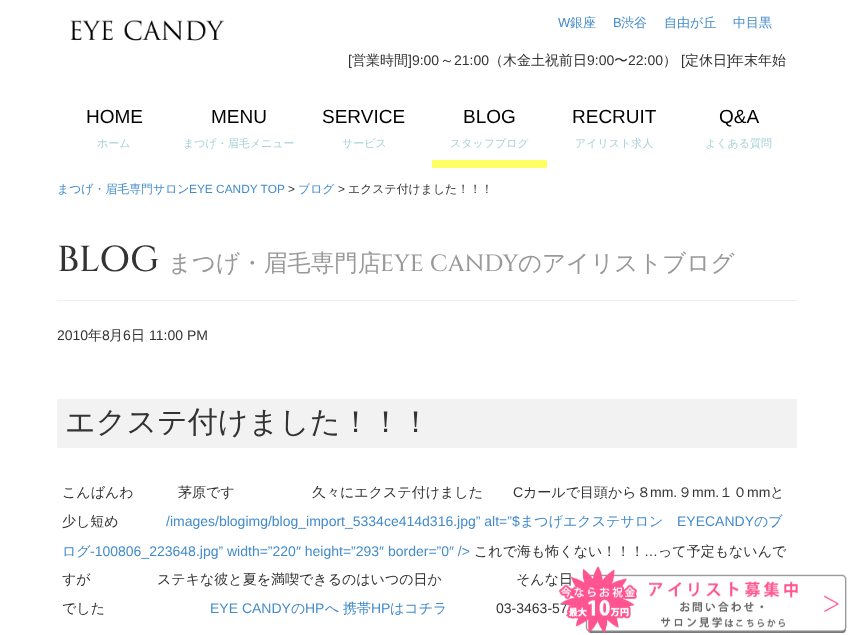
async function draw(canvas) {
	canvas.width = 853;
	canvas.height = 635;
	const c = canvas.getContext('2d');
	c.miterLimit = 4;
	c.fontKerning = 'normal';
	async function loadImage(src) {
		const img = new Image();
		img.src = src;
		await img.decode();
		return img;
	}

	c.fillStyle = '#fff';
	c.fillRect(0, 0, 853, 635);
	c.drawImage(await loadImage('img1.png'), 70, 20, 155, 21);
	c.font = '13px Liberation Sans';
	c.fillStyle = '#428bca';
	c.fillText('W', 558, 27);
	c.font = '500 13px WenQuanYi Zen Hei';
	c.fillText('銀座', 570, 27);
	c.font = '13px Liberation Sans';
	c.fillText('B', 613, 27);
	c.font = '500 13px WenQuanYi Zen Hei';
	for (const [text, x, y] of [
		['渋谷', 621, 27],
		['自由が丘', 664, 27],
		['中目黒', 733, 27],
	]) {
		c.fillText(text, x, y);
	}
	c.font = '14px Liberation Sans';
	c.fillStyle = '#333';
	c.fillText('[', 348, 65);
	c.font = '500 14px WenQuanYi Zen Hei';
	c.fillText('営業時間', 352, 65);
	c.font = '14px Liberation Sans';
	c.fillText(']9:00', 408, 65);
	c.font = '500 14px WenQuanYi Zen Hei';
	c.fillText('～', 440, 65);
	c.font = '14px Liberation Sans';
	c.fillText('21:00', 454, 65);
	c.font = '500 14px WenQuanYi Zen Hei';
	c.fillText('（木金土祝前日', 489, 65);
	c.font = '14px Liberation Sans';
	c.fillText('9:00', 587, 65);
	c.font = '500 14px WenQuanYi Zen Hei';
	c.fillText('〜', 614, 65);
	c.font = '14px Liberation Sans';
	c.fillText('22:00', 628, 65);
	c.font = '500 14px WenQuanYi Zen Hei';
	c.fillText('）', 663, 65);
	c.font = '14px Liberation Sans';
	c.fillText('[', 681, 65);
	c.font = '500 14px WenQuanYi Zen Hei';
	c.fillText('定休日', 685, 65);
	c.font = '14px Liberation Sans';
	c.fillText(']', 727, 65);
	c.font = '500 14px WenQuanYi Zen Hei';
	c.fillText('年末年始', 730, 65);
	c.font = '19px Liberation Sans';
	c.fillStyle = '#000';
	c.fillText('HOME', 86, 123);
	c.font = '500 11px WenQuanYi Zen Hei';
	c.fillStyle = '#a5d1d7';
	c.fillText('ホーム', 97, 147);
	c.font = '19px Liberation Sans';
	c.fillStyle = '#000';
	c.fillText('MENU', 211, 123);
	c.font = '500 11px WenQuanYi Zen Hei';
	c.fillStyle = '#a5d1d7';
	c.fillText('まつげ・眉毛メニュー', 183, 147);
	c.font = '19px Liberation Sans';
	c.fillStyle = '#000';
	c.fillText('SERVICE', 322, 123);
	c.font = '500 11px WenQuanYi Zen Hei';
	c.fillStyle = '#a5d1d7';
	c.fillText('サービス', 342, 147);
	c.fillStyle = '#ff6';
	c.fillRect(432, 160, 115, 8);
	c.font = '19px Liberation Sans';
	c.fillStyle = '#000';
	c.fillText('BLOG', 463, 123);
	c.font = '500 11px WenQuanYi Zen Hei';
	c.fillStyle = '#a5d1d7';
	c.fillText('スタッフブログ', 450, 147);
	c.font = '19px Liberation Sans';
	c.fillStyle = '#000';
	c.fillText('RECRUIT', 572, 123);
	c.font = '500 11px WenQuanYi Zen Hei';
	c.fillStyle = '#a5d1d7';
	c.fillText('アイリスト求人', 575, 147);
	c.font = '19px Liberation Sans';
	c.fillStyle = '#000';
	c.fillText('Q&A', 719, 123);
	c.font = '500 11px WenQuanYi Zen Hei';
	c.fillStyle = '#a5d1d7';
	c.fillText('よくある質問', 705, 147);
	c.font = '500 11.9px WenQuanYi Zen Hei';
	c.fillStyle = '#428bca';
	c.fillText('まつげ・眉毛専門サロン', 57, 193);
	c.font = '11.9px Liberation Sans';
	c.fillText('EYE CANDY TOP', 189, 193);
	c.fillStyle = '#333';
	c.fillText('>', 288, 193);
	c.font = '500 11.9px WenQuanYi Zen Hei';
	c.fillStyle = '#428bca';
	c.fillText('ブログ', 298, 193);
	c.font = '11.9px Liberation Sans';
	c.fillStyle = '#333';
	c.fillText('>', 338, 193);
	c.font = '500 11.9px WenQuanYi Zen Hei';
	c.fillText('エクステ付けました！！！', 348, 193);
	c.fillStyle = '#eee';
	c.fillRect(57, 300, 740, 1);
	c.font = '500 36px Cinzel';
	c.fillStyle = '#333';
	c.fillText('BLOG', 57, 271);
	c.font = '500 23.5px WenQuanYi Zen Hei';
	c.fillStyle = '#999';
	c.fillText('まつげ・眉毛専門店', 168, 271);
	c.font = '500 23.5px Cinzel';
	c.fillText('EYE CANDY', 380, 271);
	c.font = '500 23.5px WenQuanYi Zen Hei';
	c.fillText('のアイリストブログ', 518, 271);
	c.font = '14px Liberation Sans';
	c.fillStyle = '#333';
	c.fillText('2010', 57, 340);
	c.font = '500 14px WenQuanYi Zen Hei';
	c.fillText('年', 88, 340);
	c.font = '14px Liberation Sans';
	c.fillText('8', 102, 340);
	c.font = '500 14px WenQuanYi Zen Hei';
	c.fillText('月', 109, 340);
	c.font = '14px Liberation Sans';
	c.fillText('6', 123, 340);
	c.font = '500 14px WenQuanYi Zen Hei';
	c.fillText('日', 131, 340);
	c.font = '14px Liberation Sans';
	c.fillText('11:00 PM', 149, 340);
	c.fillStyle = '#f2f2f2';
	c.fillRect(57, 399, 740, 49);
	c.font = '500 30px WenQuanYi Zen Hei';
	c.fillStyle = '#333';
	c.fillText('エクステ付けました！！！', 65, 432);
	c.font = '500 14px WenQuanYi Zen Hei';
	for (const [text, x, y] of [
		['こんばんわ', 62, 497],
		['茅原です', 178, 497],
		['久々にエクステ付けました', 312, 497],
	]) {
		c.fillText(text, x, y);
	}
	c.font = '14px Liberation Sans';
	c.fillText('C', 513, 497);
	c.font = '500 14px WenQuanYi Zen Hei';
	c.fillText('カールで目頭から８', 523, 497);
	c.font = '14px Liberation Sans';
	c.fillText('mm.', 650, 497);
	c.font = '500 14px WenQuanYi Zen Hei';
	c.fillText('９', 678, 497);
	c.font = '14px Liberation Sans';
	c.fillText('mm.', 692, 497);
	c.font = '500 14px WenQuanYi Zen Hei';
	c.fillText('１０', 719, 497);
	c.font = '14px Liberation Sans';
	c.fillText('mm', 747, 497);
	c.font = '500 14px WenQuanYi Zen Hei';
	c.fillText('と', 770, 497);
	c.fillText('少し短め', 62, 526);
	c.font = '14px Liberation Sans';
	c.fillStyle = '#428bca';
	c.fillText('/images/blogimg/blog_import_5334ce414d316.jpg” alt=”$', 166, 526);
	c.font = '500 14px WenQuanYi Zen Hei';
	c.fillText('まつげエクステサロン', 520, 526);
	c.font = '14px Liberation Sans';
	c.fillText('EYECANDY', 677, 526);
	c.font = '500 14px WenQuanYi Zen Hei';
	c.fillText('のブ', 754, 526);
	c.fillText('ログ', 62, 556);
	c.font = '14px Liberation Sans';
	c.fillText('-100806_223648.jpg” width=”220″ height=”293″ border=”0″ />', 90, 556);
	c.font = '500 14px WenQuanYi Zen Hei';
	c.fillStyle = '#333';
	c.fillText('これで海も怖くない！！！', 474, 556);
	c.font = '14px Liberation Sans';
	c.fillText('…', 644, 556);
	c.font = '500 14px WenQuanYi Zen Hei';
	for (const [text, x, y] of [
		['って予定もないんで', 658, 556],
		['すが', 62, 584],
		['ステキな彼と夏を満喫できるのはいつの日か', 157, 584],
		['そんな日', 516, 584],
		['でした', 62, 613],
	]) {
		c.fillText(text, x, y);
	}
	c.font = '14px Liberation Sans';
	c.fillStyle = '#428bca';
	c.fillText('EYE CANDY', 210, 613);
	c.font = '500 14px WenQuanYi Zen Hei';
	c.fillText('の', 291, 613);
	c.font = '14px Liberation Sans';
	c.fillText('HP', 305, 613);
	c.font = '500 14px WenQuanYi Zen Hei';
	c.fillText('へ', 325, 613);
	c.fillText('携帯', 343, 613);
	c.font = '14px Liberation Sans';
	c.fillText('HP', 371, 613);
	c.font = '500 14px WenQuanYi Zen Hei';
	c.fillText('はコチラ', 390, 613);
	c.font = '14px Liberation Sans';
	c.fillStyle = '#333';
	c.fillText('03-3463-57', 496, 613);
	c.drawImage(await loadImage('img2.png'), 558, 566, 289, 67);
}

draw(document.querySelector('canvas'));
